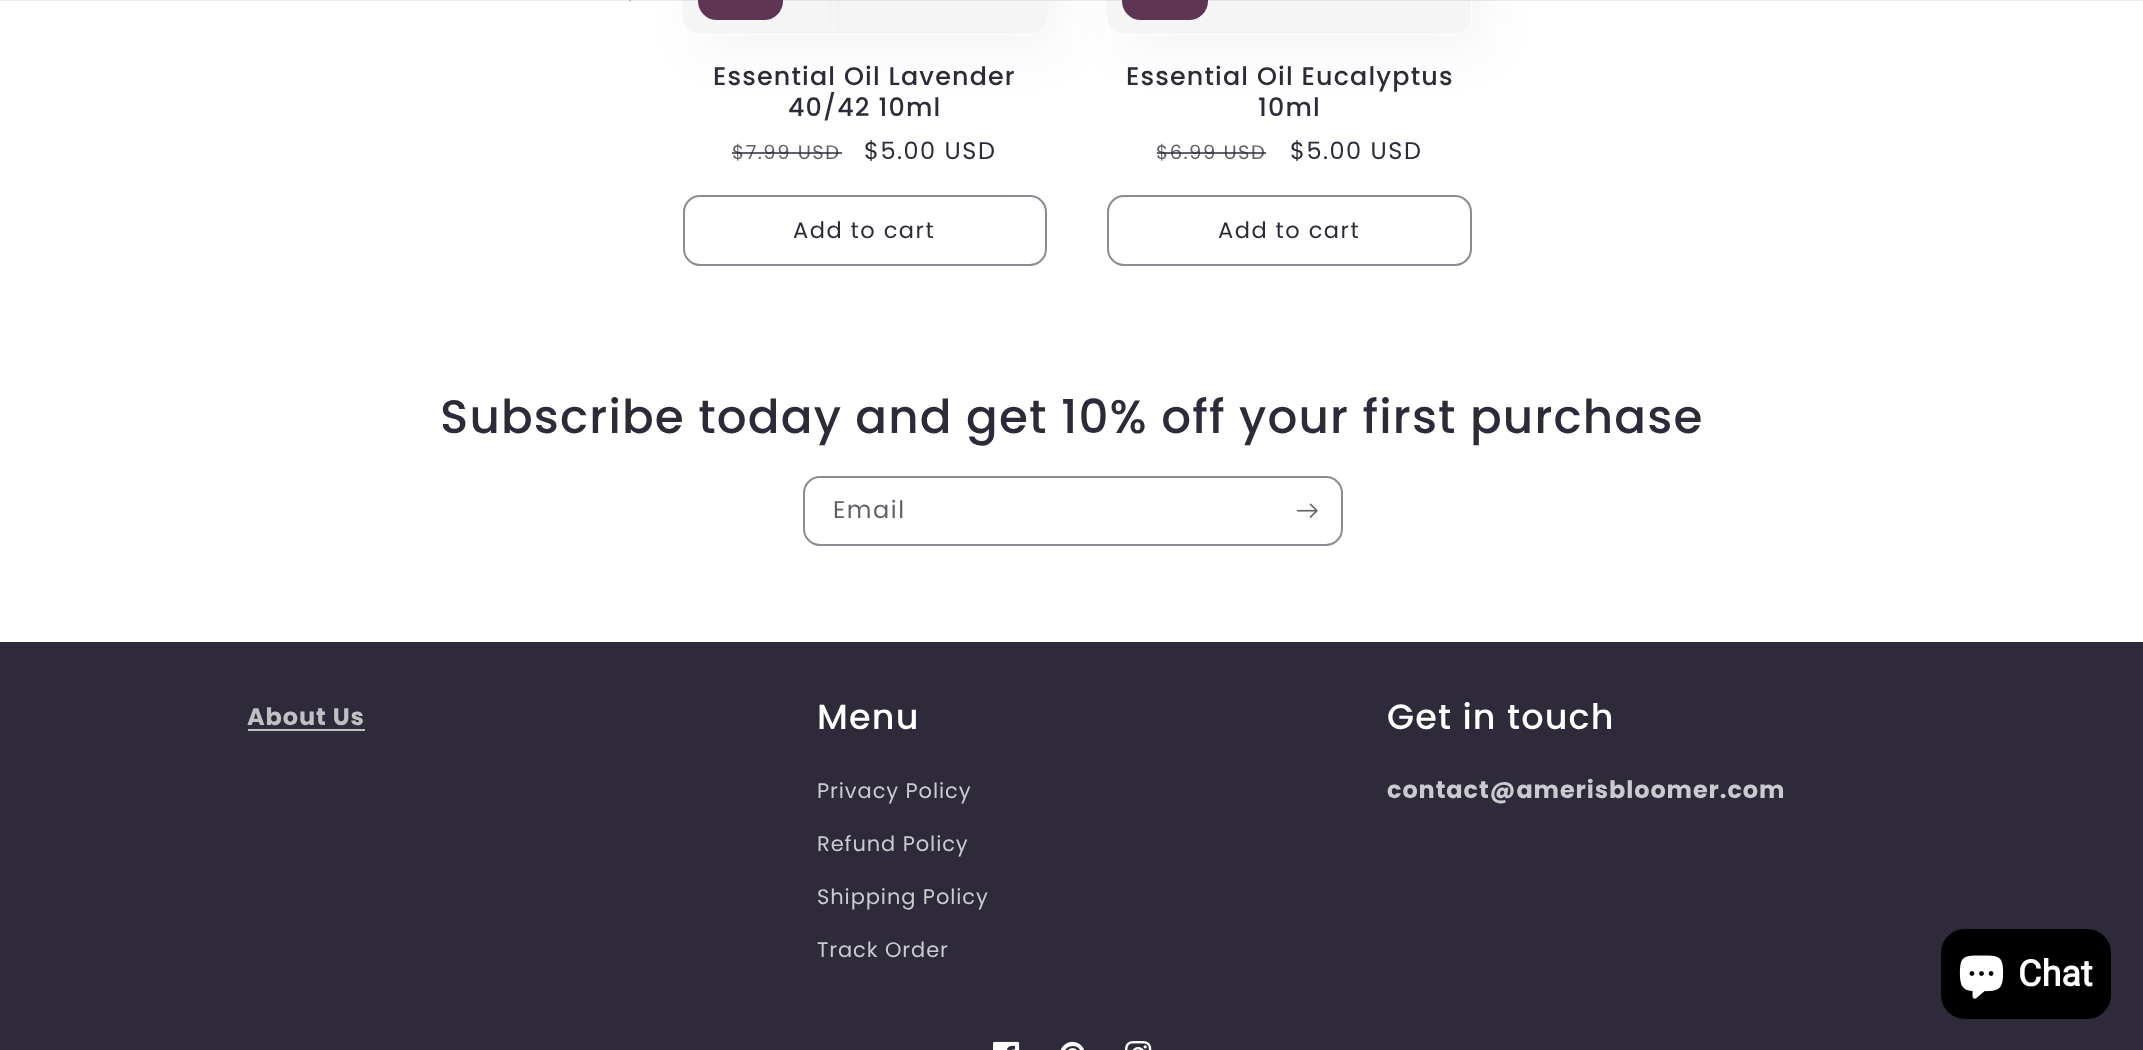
async function draw(canvas) {
	canvas.width = 2143;
	canvas.height = 1050;
	const c = canvas.getContext('2d');
	c.miterLimit = 4;
	c.fontKerning = 'normal';
	async function loadImage(src) {
		const img = new Image();
		img.src = src;
		await img.decode();
		return img;
	}

	c.fillStyle = '#fff';
	c.fillRect(0, 0, 2143, 1050);
	c.fillStyle = '#2e2a390d';
	c.filter = 'blur(26px)';
	c.beginPath();
	c.roundRect(698, -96, 364, 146, 18);
	c.fill();
	c.filter = 'none';
	c.fillStyle = '#b4b2b8';
	c.fillRect(629, 0, 2, 1);
	c.fillStyle = '#2e2a390d';
	c.filter = 'blur(26px)';
	c.beginPath();
	c.roundRect(1122, -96, 365, 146, 18);
	c.fill();
	c.filter = 'none';
	c.fillStyle = '#fff';
	c.beginPath();
	c.roundRect(683, -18, 364, 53, 18);
	c.fill();
	c.drawImage(await loadImage('img1.png'), 683, 0, 364, 34);
	c.fillStyle = '#5e3653';
	c.beginPath();
	c.roundRect(699, -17, 83, 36, 18);
	c.fill();
	c.strokeStyle = '#5e3653';
	c.lineWidth = 2;
	c.stroke();
	c.fillStyle = '#fff';
	c.beginPath();
	c.roundRect(1107, -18, 365, 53, 18);
	c.fill();
	c.drawImage(await loadImage('img2.png'), 1107, 0, 364, 34);
	c.fillStyle = '#5e3653';
	c.beginPath();
	c.roundRect(1123, -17, 84, 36, 18);
	c.fill();
	c.stroke();
	c.fillStyle = '#2e2a3914';
	c.fillRect(0, 0, 2143, 1);
	c.letterSpacing = '1.17px';
	c.font = '500 25.4px Poppins';
	c.fillStyle = '#2e2a39';
	c.fillText('Essential Oil Lavender', 713, 85);
	c.fillText('40/42 10ml', 788, 116);
	c.letterSpacing = '1.5px';
	c.font = '19.5px Poppins';
	c.fillStyle = '#625f6b';
	c.fillText('$7.99 USD', 732, 159);
	c.fillStyle = '#2e2a39bf';
	c.fillRect(732, 152, 110, 2);
	c.font = '24px Poppins';
	c.fillStyle = '#2e2a39';
	c.fillText('$5.00 USD', 864, 159);
	c.beginPath();
	c.roundRect(684, 196, 362, 69, 16);
	c.strokeStyle = '#8c8a92';
	c.stroke();
	c.font = '22.5px Poppins';
	c.fillText('Add to cart', 793, 238);
	c.letterSpacing = '1.17px';
	c.font = '500 25.4px Poppins';
	c.fillText('Essential Oil Eucalyptus', 1126, 85);
	c.fillText('10ml', 1258, 116);
	c.letterSpacing = '1.5px';
	c.font = '19.5px Poppins';
	c.fillStyle = '#625f6b';
	c.fillText('$6.99 USD', 1156, 159);
	c.fillStyle = '#2e2a39bf';
	c.fillRect(1157, 152, 109, 2);
	c.font = '24px Poppins';
	c.fillStyle = '#2e2a39';
	c.fillText('$5.00 USD', 1290, 159);
	c.beginPath();
	c.roundRect(1108, 196, 363, 69, 16);
	c.stroke();
	c.font = '22.5px Poppins';
	c.fillText('Add to cart', 1218, 238);
	c.letterSpacing = '1.17px';
	c.font = '500 46.8px Poppins';
	c.fillText('Subscribe today and get 10% off your first purchase', 440, 433);
	c.beginPath();
	c.roundRect(804, 477, 538, 68, 16);
	c.stroke();
	c.letterSpacing = '1.5px';
	c.font = '24px Poppins';
	c.fillStyle = '#625f6b';
	c.fillText('Email', 833, 518);
	c.drawImage(await loadImage('img3.png'), 1296, 503, 22, 15);
	c.fillStyle = '#2e2a39';
	c.fillRect(0, 642, 2143, 408);
	c.letterSpacing = '0.9px';
	c.font = 'bold 24px Poppins';
	c.fillStyle = '#c0bfc4';
	c.fillText('About Us', 247, 725);
	c.fillRect(248, 729, 117, 2);
	c.letterSpacing = '1.17px';
	c.font = '500 35px Poppins';
	c.fillStyle = '#fff';
	c.fillText('Menu', 817, 729);
	c.letterSpacing = '0.9px';
	c.font = '21px Poppins';
	c.fillStyle = '#cbcace';
	for (const [text, x, y] of [
		['Privacy Policy', 817, 798],
		['Refund Policy', 817, 851],
		['Shipping Policy', 817, 904],
		['Track Order', 817, 957],
	]) {
		c.fillText(text, x, y);
	}
	c.letterSpacing = '1.17px';
	c.font = '500 35px Poppins';
	c.fillStyle = '#fff';
	c.fillText('Get in touch', 1387, 729);
	c.letterSpacing = '0.9px';
	c.font = 'bold 24px Poppins';
	c.fillStyle = '#cbcace';
	c.fillText('contact@amerisbloomer.com', 1387, 798);
	c.drawImage(await loadImage('img4.png'), 993, 1041, 27, 9);
	c.drawImage(await loadImage('img5.png'), 1060, 1041, 24, 9);
	c.drawImage(await loadImage('img6.png'), 1125, 1041, 27, 9);
	c.fillStyle = '#000';
	c.beginPath();
	c.roundRect(1941, 929, 170, 90, 24);
	c.fill();
	c.drawImage(await loadImage('img7.png'), 1959, 955, 45, 44);
	c.letterSpacing = '0px';
	c.font = 'bold 36px Roboto';
	c.fillStyle = '#fff';
	c.fillText('Chat', 2018, 986);
}

draw(document.querySelector('canvas'));
